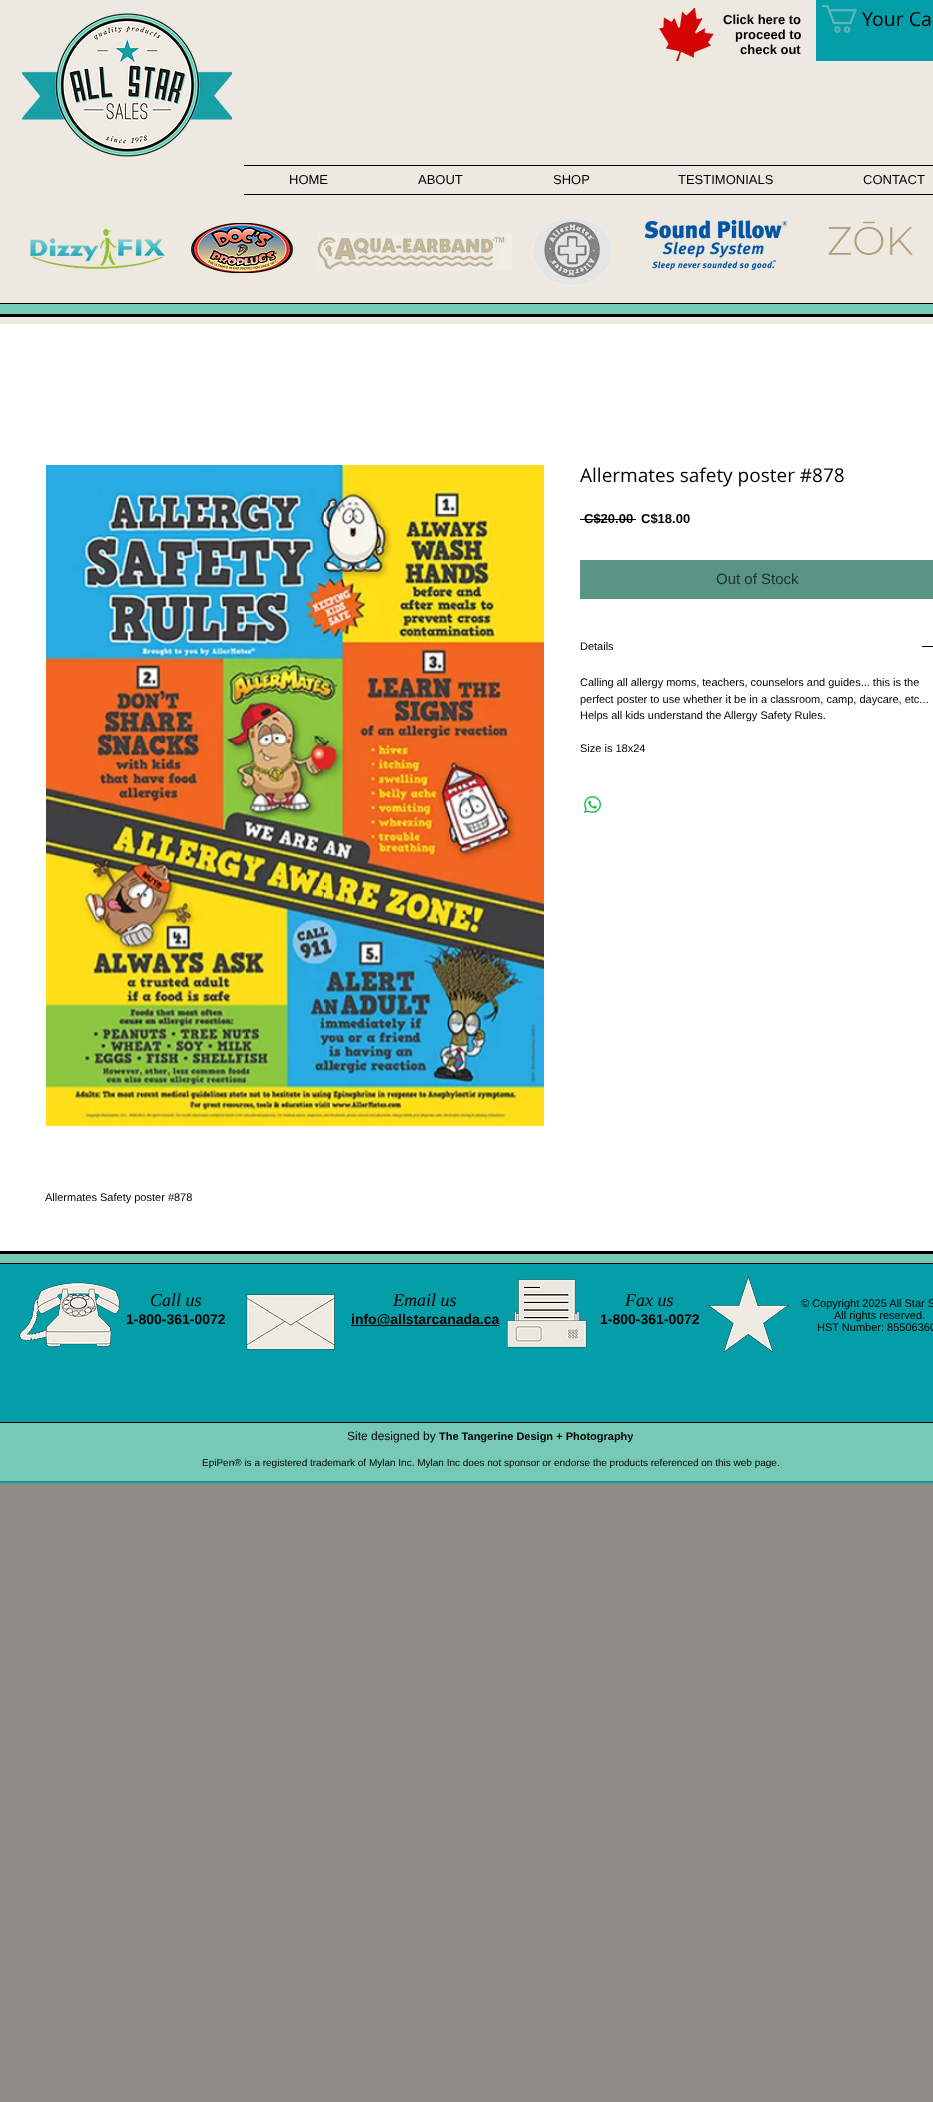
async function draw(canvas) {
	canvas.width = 933;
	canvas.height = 2102;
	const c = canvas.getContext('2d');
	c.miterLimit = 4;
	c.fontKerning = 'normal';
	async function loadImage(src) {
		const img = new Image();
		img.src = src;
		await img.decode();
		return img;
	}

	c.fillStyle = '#8e8c86';
	c.fillRect(0, 0, 933, 2102);
	c.fillStyle = '#ede9e1';
	c.fillRect(0, 0, 933, 324);
	c.drawImage(await loadImage('img1.png'), 22, 13, 210, 144);
	c.drawImage(await loadImage('img2.png'), 659, 8, 55, 53);
	c.font = 'bold 13px Liberation Sans';
	c.fillStyle = '#000';
	for (const [text, x, y] of [
		['Click here to', 723, 24],
		['proceed to', 735, 39],
		['check out', 740, 54],
	]) {
		c.fillText(text, x, y);
	}
	c.fillStyle = '#039ea7';
	c.fillRect(816, 0, 117, 61);
	c.drawImage(await loadImage('img3.png'), 822, 5, 35, 28);
	c.font = '19.5px Open Sans';
	c.fillStyle = '#000';
	c.fillText('Your Ca', 862, 26);
	c.fillRect(244, 165, 689, 1);
	c.fillRect(244, 194, 689, 1);
	c.font = '13px Liberation Sans';
	for (const [text, x, y] of [
		['HOME', 289, 184],
		['ABOUT', 418, 184],
		['SHOP', 553, 184],
		['TESTIMONIALS', 678, 184],
		['CONTACT', 863, 184],
	]) {
		c.fillText(text, x, y);
	}
	c.drawImage(await loadImage('img4.png'), 30, 228, 135, 41);
	c.drawImage(await loadImage('img5.png'), 191, 223, 102, 50);
	c.drawImage(await loadImage('img6.png'), 317, 233, 195, 37);
	c.fillStyle = '#fff';
	c.beginPath();
	c.ellipse(572.5, 251.5, 39.5, 34.5, 0, 0, 2 * Math.PI);
	c.fill();
	c.drawImage(await loadImage('img7.png'), 533, 217, 79, 69);
	c.drawImage(await loadImage('img8.png'), 645, 220, 142, 50);
	c.drawImage(await loadImage('img9.png'), 828, 221, 85, 34);
	for (const [x, y, w, h, color] of [
		[0, 303, 933, 1, '#000'],
		[0, 304, 933, 10, '#75c9b5'],
		[0, 314, 933, 3, '#000'],
		[0, 324, 933, 927, '#fff'],
	]) {
		c.fillStyle = color;
		c.fillRect(x, y, w, h);
	}
	c.font = '19px Open Sans';
	c.fillStyle = '#000';
	c.fillText('Allermates safety poster #878', 580, 482);
	c.font = 'bold 13px Liberation Sans';
	c.fillText('C$20.00', 584, 523);
	c.fillRect(580, 519, 56, 1);
	c.fillText('C$18.00', 641, 523);
	c.fillStyle = '#589585';
	c.fillRect(580, 560, 353, 39);
	c.font = '15px Liberation Sans';
	c.fillStyle = '#1d312c';
	c.fillText('Out of Stock', 716, 584);
	c.font = '11px Liberation Sans';
	c.fillStyle = '#000';
	c.fillText('Details', 580, 650);
	c.fillRect(922, 646, 11, 1);
	for (const [text, x, y] of [
		['Calling all allergy moms, teachers, counselors and guides... this is the', 580, 686],
		['perfect poster to use whether it be in a classroom, camp, daycare, etc...', 580, 703],
		['Helps all kids understand the Allergy Safety Rules.', 580, 719],
		['Size is 18x24', 580, 752],
	]) {
		c.fillText(text, x, y);
	}
	c.drawImage(await loadImage('img10.png'), 584, 796, 17, 17);
	c.drawImage(await loadImage('img11.png'), 46, 465, 498, 662);
	c.fillText('Allermates Safety poster #878', 45, 1201);
	for (const [x, y, w, h, color] of [
		[0, 1264, 933, 219, '#039ea7'],
		[0, 1251, 933, 3, '#000'],
		[0, 1254, 933, 9, '#75c9b5'],
		[0, 1263, 933, 1, '#000'],
	]) {
		c.fillStyle = color;
		c.fillRect(x, y, w, h);
	}
	c.drawImage(await loadImage('img12.png'), 19, 1282, 101, 65);
	c.font = 'italic 18px Liberation Serif';
	c.fillText('Call us', 150, 1306);
	c.font = 'bold 14px Liberation Sans';
	c.fillText('1-800-361-0072', 126, 1324);
	c.drawImage(await loadImage('img13.png'), 246, 1294, 89, 56);
	c.font = 'italic 18px Liberation Serif';
	c.fillText('Email us', 393, 1306);
	c.fillRect(351, 1325, 148, 1);
	c.font = 'bold 14px Liberation Sans';
	c.fillText('info@allstarcanada.ca', 351, 1324);
	c.drawImage(await loadImage('img14.png'), 507, 1279, 80, 69);
	c.font = 'italic 18px Liberation Serif';
	c.fillText('Fax us', 625, 1306);
	c.font = 'bold 14px Liberation Sans';
	c.fillText('1-800-361-0072', 600, 1324);
	c.drawImage(await loadImage('img15.png'), 708, 1276, 81, 77);
	c.font = '11px Liberation Sans';
	for (const [text, x, y] of [
		['© Copyright 2025 All Star S', 801, 1307],
		['All rights reserved.', 834, 1319],
		['HST Number: 85506360', 817, 1331],
	]) {
		c.fillText(text, x, y);
	}
	c.fillRect(0, 1422, 933, 1);
	c.fillStyle = '#75c9b5';
	c.fillRect(0, 1423, 933, 58);
	c.font = '12px Liberation Sans';
	c.fillStyle = '#000';
	c.fillText('Site designed by', 347, 1440);
	c.font = 'bold 11px Liberation Sans';
	c.fillText('The Tangerine Design + Photography', 439, 1440);
	c.font = '10px Liberation Sans';
	c.fillText('EpiPen® is a registered trademark of Mylan Inc. Mylan Inc does not sponsor or endorse the products referenced on this web page.', 202, 1466);
}

draw(document.querySelector('canvas'));
